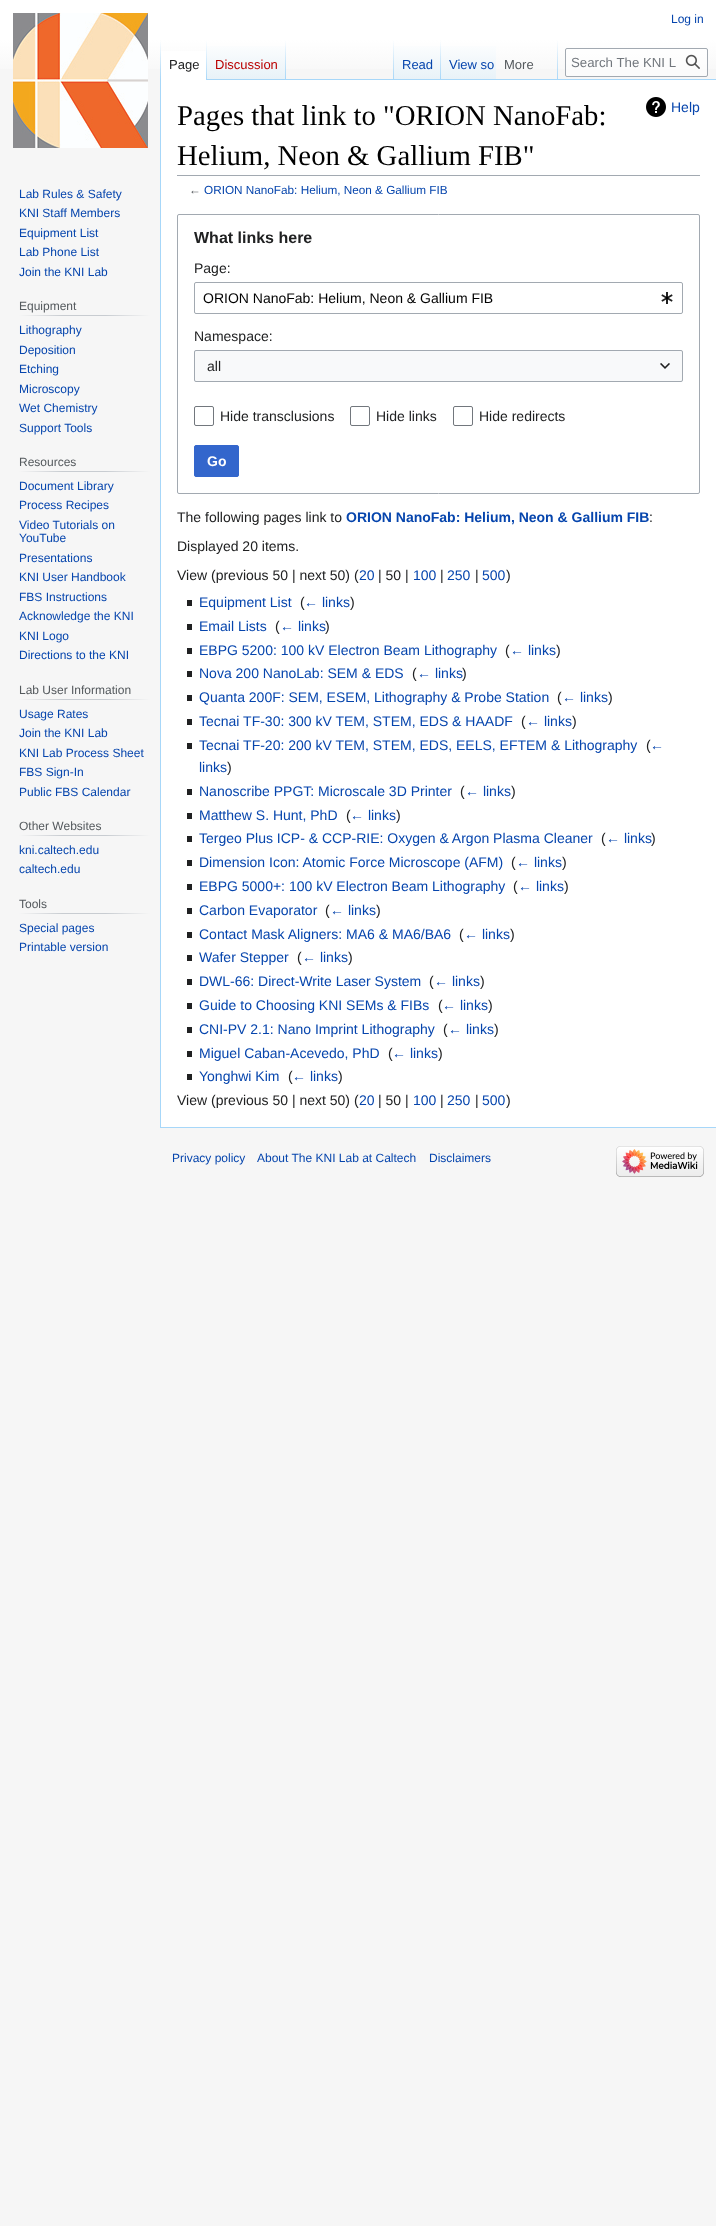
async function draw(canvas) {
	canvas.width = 716;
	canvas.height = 2226;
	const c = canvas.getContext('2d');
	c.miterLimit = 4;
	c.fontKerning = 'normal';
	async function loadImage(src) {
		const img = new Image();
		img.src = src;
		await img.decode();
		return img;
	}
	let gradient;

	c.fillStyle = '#f6f6f6';
	c.fillRect(0, 0, 716, 2226);
	gradient = c.createLinearGradient(358, 0, 358, 80);
	gradient.addColorStop(0.5, '#fff');
	gradient.addColorStop(1, '#f6f6f6');
	c.fillStyle = gradient;
	c.fillRect(0, 0, 716, 69);
	c.font = '12px Liberation Sans';
	c.fillStyle = '#0645ad';
	c.fillText('Log in', 671, 23);
	c.fillStyle = '#a7d7f9';
	c.fillRect(160, 1127, 556, 1);
	c.fillRect(160, 79, 1, 1049);
	gradient = c.createLinearGradient(161, 40, 161, 80);
	gradient.addColorStop(0, '#a7d7f900');
	gradient.addColorStop(1, '#a7d7f9');
	c.fillStyle = gradient;
	c.fillRect(160, 40, 1, 40);
	c.fillStyle = '#fff';
	c.fillRect(161, 51, 45, 29);
	gradient = c.createLinearGradient(207, 40, 207, 80);
	gradient.addColorStop(0, '#fff');
	gradient.addColorStop(1, '#a7d7f9');
	c.fillStyle = gradient;
	c.fillRect(206, 40, 1, 40);
	c.font = '13px Liberation Sans';
	c.fillStyle = '#202122';
	c.fillText('Page', 169, 69);
	gradient = c.createLinearGradient(247, 80, 247, 40);
	gradient.addColorStop(0, '#77c1f6');
	gradient.addColorStop(0.03, '#e8f2f8');
	gradient.addColorStop(1, '#fff');
	c.fillStyle = gradient;
	c.fillRect(207, 46, 79, 34);
	gradient = c.createLinearGradient(286, 40, 286, 80);
	gradient.addColorStop(0, '#a7d7f900');
	gradient.addColorStop(1, '#a7d7f9');
	c.fillStyle = gradient;
	c.fillRect(285, 40, 1, 40);
	c.fillStyle = '#ba0000';
	c.fillText('Discussion', 215, 69);
	c.fillStyle = '#a7d7f9';
	c.fillRect(286, 79, 430, 1);
	gradient = c.createLinearGradient(394, 40, 394, 80);
	gradient.addColorStop(0, '#a7d7f900');
	gradient.addColorStop(1, '#a7d7f9');
	c.fillStyle = gradient;
	c.fillRect(393, 40, 1, 40);
	gradient = c.createLinearGradient(418, 80, 418, 40);
	gradient.addColorStop(0, '#77c1f6');
	gradient.addColorStop(0.03, '#e8f2f8');
	gradient.addColorStop(1, '#fff');
	c.fillStyle = gradient;
	c.fillRect(394, 46, 47, 33);
	gradient = c.createLinearGradient(441, 40, 441, 80);
	gradient.addColorStop(0, '#a7d7f900');
	gradient.addColorStop(1, '#a7d7f9');
	c.fillStyle = gradient;
	c.fillRect(440, 40, 1, 40);
	c.fillStyle = '#0645ad';
	c.fillText('Read', 402, 69);
	gradient = c.createLinearGradient(469, 80, 469, 40);
	gradient.addColorStop(0, '#77c1f6');
	gradient.addColorStop(0.03, '#e8f2f8');
	gradient.addColorStop(1, '#fff');
	c.fillStyle = gradient;
	c.fillRect(441, 46, 55, 33);
	c.fillStyle = '#0645ad';
	c.fillText('View so', 449, 69);
	gradient = c.createLinearGradient(558, 40, 558, 80);
	gradient.addColorStop(0, '#a7d7f900');
	gradient.addColorStop(1, '#a7d7f9');
	c.fillStyle = gradient;
	c.fillRect(557, 40, 1, 40);
	c.fillStyle = '#54595d';
	c.fillText('More', 504, 69);
	c.fillStyle = '#ffffff80';
	c.beginPath();
	c.roundRect(565.5, 48.5, 142, 28, 1.5);
	c.fill();
	c.strokeStyle = '#a2a9b1';
	c.stroke();
	c.font = '13.25px Liberation Sans';
	c.fillStyle = '#72777d';
	c.fillText('Search The KNI L', 571, 67);
	c.drawImage(await loadImage('img1.png'), 685, 54, 15, 15);
	c.drawImage(await loadImage('img2.png'), 13, 13, 135, 135);
	c.font = '12px Liberation Sans';
	c.fillStyle = '#0645ad';
	for (const [text, x, y] of [
		['Lab Rules & Safety', 19, 198],
		['KNI Staff Members', 19, 217],
		['Equipment List', 19, 237],
		['Lab Phone List', 19, 256],
		['Join the KNI Lab', 19, 276],
	]) {
		c.fillText(text, x, y);
	}
	gradient = c.createLinearGradient(19, 316, 150, 316);
	gradient.addColorStop(0, '#f6f6f6');
	gradient.addColorStop(0.33, '#c8ccd1');
	gradient.addColorStop(0.66, '#c8ccd1');
	gradient.addColorStop(1, '#f6f6f6');
	c.fillStyle = gradient;
	c.fillRect(19, 315, 131, 1);
	c.fillStyle = '#54595d';
	c.fillText('Equipment', 19, 310);
	c.fillStyle = '#0645ad';
	for (const [text, x, y] of [
		['Lithography', 19, 334],
		['Deposition', 19, 354],
		['Etching', 19, 373],
		['Microscopy', 19, 393],
		['Wet Chemistry', 19, 412],
		['Support Tools', 19, 432],
	]) {
		c.fillText(text, x, y);
	}
	gradient = c.createLinearGradient(19, 472, 150, 472);
	gradient.addColorStop(0, '#f6f6f6');
	gradient.addColorStop(0.33, '#c8ccd1');
	gradient.addColorStop(0.66, '#c8ccd1');
	gradient.addColorStop(1, '#f6f6f6');
	c.fillStyle = gradient;
	c.fillRect(19, 471, 131, 1);
	c.fillStyle = '#54595d';
	c.fillText('Resources', 19, 466);
	c.fillStyle = '#0645ad';
	for (const [text, x, y] of [
		['Document Library', 19, 490],
		['Process Recipes', 19, 509],
		['Video Tutorials on', 19, 529],
		['YouTube', 19, 542],
		['Presentations', 19, 562],
		['KNI User Handbook', 19, 581],
		['FBS Instructions', 19, 601],
		['Acknowledge the KNI', 19, 620],
		['KNI Logo', 19, 640],
		['Directions to the KNI', 19, 659],
	]) {
		c.fillText(text, x, y);
	}
	gradient = c.createLinearGradient(19, 700, 150, 700);
	gradient.addColorStop(0, '#f6f6f6');
	gradient.addColorStop(0.33, '#c8ccd1');
	gradient.addColorStop(0.66, '#c8ccd1');
	gradient.addColorStop(1, '#f6f6f6');
	c.fillStyle = gradient;
	c.fillRect(19, 699, 131, 1);
	c.fillStyle = '#54595d';
	c.fillText('Lab User Information', 19, 694);
	c.fillStyle = '#0645ad';
	for (const [text, x, y] of [
		['Usage Rates', 19, 718],
		['Join the KNI Lab', 19, 737],
		['KNI Lab Process Sheet', 19, 757],
		['FBS Sign-In', 19, 776],
		['Public FBS Calendar', 19, 796],
	]) {
		c.fillText(text, x, y);
	}
	gradient = c.createLinearGradient(19, 836, 150, 836);
	gradient.addColorStop(0, '#f6f6f6');
	gradient.addColorStop(0.33, '#c8ccd1');
	gradient.addColorStop(0.66, '#c8ccd1');
	gradient.addColorStop(1, '#f6f6f6');
	c.fillStyle = gradient;
	c.fillRect(19, 835, 131, 1);
	c.fillStyle = '#54595d';
	c.fillText('Other Websites', 19, 830);
	c.fillStyle = '#0645ad';
	c.fillText('kni.caltech.edu', 19, 854);
	c.fillText('caltech.edu', 19, 873);
	gradient = c.createLinearGradient(19, 914, 150, 914);
	gradient.addColorStop(0, '#f6f6f6');
	gradient.addColorStop(0.33, '#c8ccd1');
	gradient.addColorStop(0.66, '#c8ccd1');
	gradient.addColorStop(1, '#f6f6f6');
	c.fillStyle = gradient;
	c.fillRect(19, 913, 131, 1);
	c.fillStyle = '#54595d';
	c.fillText('Tools', 19, 908);
	c.fillStyle = '#0645ad';
	c.fillText('Special pages', 19, 932);
	c.fillText('Printable version', 19, 951);
	c.fillStyle = '#fff';
	c.fillRect(161, 80, 555, 1047);
	c.fillStyle = '#a2a9b1';
	c.fillRect(177, 175, 523, 1);
	c.font = '28.75px Liberation Serif';
	c.fillStyle = '#000';
	c.fillText('Pages that link to "ORION NanoFab:', 177, 125);
	c.fillText('Helium, Neon & Gallium FIB"', 177, 165);
	c.drawImage(await loadImage('img3.png'), 646, 97, 20, 20);
	c.font = '14px Liberation Sans';
	c.fillStyle = '#0645ad';
	c.fillText('Help', 671, 112);
	c.font = '11.75px Liberation Sans';
	c.fillStyle = '#54595d';
	c.fillText('←', 189, 194);
	c.fillStyle = '#0645ad';
	c.fillText('ORION NanoFab: Helium, Neon & Gallium FIB', 204, 194);
	c.beginPath();
	c.roundRect(177.5, 214.5, 522, 279, 1.5);
	c.stroke();
	c.font = 'bold 16px Liberation Sans';
	c.fillStyle = '#202122';
	c.fillText('What links here', 194, 243);
	c.font = '14px Liberation Sans';
	c.fillText('Page:', 194, 273);
	c.beginPath();
	c.roundRect(194.5, 282.5, 488, 31, 1.5);
	c.stroke();
	c.fillStyle = '#000';
	c.fillText('ORION NanoFab: Helium, Neon & Gallium FIB', 203, 303);
	c.drawImage(await loadImage('img4.png'), 661, 292, 12, 12);
	c.fillStyle = '#202122';
	c.fillText('Namespace:', 194, 341);
	c.fillStyle = '#f8f9fa';
	c.fillRect(194, 350, 489, 32);
	c.beginPath();
	c.roundRect(194.5, 350.5, 488, 31, 1.5);
	c.stroke();
	c.fillStyle = '#202122';
	c.fillText('all', 207, 371);
	c.drawImage(await loadImage('img5.png'), 660, 363, 10, 6);
	c.beginPath();
	c.roundRect(194.5, 406.5, 19, 19, 1.5);
	c.strokeStyle = '#72777d';
	c.stroke();
	c.fillText('Hide transclusions', 220, 421);
	c.beginPath();
	c.roundRect(350.5, 406.5, 19, 19, 1.5);
	c.stroke();
	c.fillText('Hide links', 376, 421);
	c.beginPath();
	c.roundRect(453.5, 406.5, 19, 19, 1.5);
	c.stroke();
	c.fillText('Hide redirects', 479, 421);
	c.fillStyle = '#36c';
	c.beginPath();
	c.roundRect(194.5, 445.5, 44, 31, 1.5);
	c.fill();
	c.strokeStyle = '#36c';
	c.stroke();
	c.font = 'bold 14px Liberation Sans';
	c.fillStyle = '#fff';
	c.fillText('Go', 207, 466);
	c.font = '14px Liberation Sans';
	c.fillStyle = '#202122';
	c.fillText('The following pages link to', 177, 522);
	c.font = 'bold 14px Liberation Sans';
	c.fillStyle = '#0645ad';
	c.fillText('ORION NanoFab: Helium, Neon & Gallium FIB', 346, 522);
	c.font = '14px Liberation Sans';
	c.fillStyle = '#202122';
	for (const [text, x, y] of [
		[':', 649, 522],
		['Displayed 20 items.', 177, 551],
		['View (previous 50 | next 50) (', 177, 580],
	]) {
		c.fillText(text, x, y);
	}
	c.fillStyle = '#0645ad';
	c.fillText('20', 359, 580);
	c.fillStyle = '#202122';
	c.fillText('| 50 |', 378, 580);
	c.fillStyle = '#0645ad';
	c.fillText('100', 413, 580);
	c.fillStyle = '#202122';
	c.fillText('|', 440, 580);
	c.fillStyle = '#0645ad';
	c.fillText('250', 447, 580);
	c.fillStyle = '#202122';
	c.fillText('|', 475, 580);
	c.fillStyle = '#0645ad';
	c.fillText('500', 482, 580);
	c.fillStyle = '#202122';
	c.fillText(')', 506, 580);
	c.fillRect(187, 600, 5, 6);
	c.fillStyle = '#0645ad';
	c.fillText('Equipment List', 199, 607);
	c.fillStyle = '#202122';
	c.fillText('(', 300, 607);
	c.fillStyle = '#0645ad';
	c.fillText('← links', 304, 607);
	c.fillStyle = '#202122';
	c.fillText(')', 350, 607);
	c.fillRect(187, 624, 5, 6);
	c.fillStyle = '#0645ad';
	c.fillText('Email Lists', 199, 631);
	c.fillStyle = '#202122';
	c.fillText('(', 275, 631);
	c.fillStyle = '#0645ad';
	c.fillText('← links', 280, 631);
	c.fillStyle = '#202122';
	c.fillText(')', 325, 631);
	c.fillRect(187, 648, 5, 6);
	c.fillStyle = '#0645ad';
	c.fillText('EBPG 5200: 100 kV Electron Beam Lithography', 199, 655);
	c.fillStyle = '#202122';
	c.fillText('(', 505, 655);
	c.fillStyle = '#0645ad';
	c.fillText('← links', 510, 655);
	c.fillStyle = '#202122';
	c.fillText(')', 556, 655);
	c.fillRect(187, 671, 5, 6);
	c.fillStyle = '#0645ad';
	c.fillText('Nova 200 NanoLab: SEM & EDS', 199, 678);
	c.fillStyle = '#202122';
	c.fillText('(', 412, 678);
	c.fillStyle = '#0645ad';
	c.fillText('← links', 417, 678);
	c.fillStyle = '#202122';
	c.fillText(')', 462, 678);
	c.fillRect(187, 695, 5, 6);
	c.fillStyle = '#0645ad';
	c.fillText('Quanta 200F: SEM, ESEM, Lithography & Probe Station', 199, 702);
	c.fillStyle = '#202122';
	c.fillText('(', 557, 702);
	c.fillStyle = '#0645ad';
	c.fillText('← links', 562, 702);
	c.fillStyle = '#202122';
	c.fillText(')', 608, 702);
	c.fillRect(187, 719, 5, 6);
	c.fillStyle = '#0645ad';
	c.fillText('Tecnai TF-30: 300 kV TEM, STEM, EDS & HAADF', 199, 726);
	c.fillStyle = '#202122';
	c.fillText('(', 521, 726);
	c.fillStyle = '#0645ad';
	c.fillText('← links', 526, 726);
	c.fillStyle = '#202122';
	c.fillText(')', 572, 726);
	c.fillRect(187, 743, 5, 6);
	c.fillStyle = '#0645ad';
	c.fillText('Tecnai TF-20: 200 kV TEM, STEM, EDS, EELS, EFTEM & Lithography', 199, 750);
	c.fillStyle = '#202122';
	c.fillText('(', 646, 750);
	c.fillStyle = '#0645ad';
	c.fillText('←', 650, 750);
	c.fillText('links', 199, 772);
	c.fillStyle = '#202122';
	c.fillText(')', 227, 772);
	c.fillRect(187, 789, 5, 6);
	c.fillStyle = '#0645ad';
	c.fillText('Nanoscribe PPGT: Microscale 3D Printer', 199, 796);
	c.fillStyle = '#202122';
	c.fillText('(', 460, 796);
	c.fillStyle = '#0645ad';
	c.fillText('← links', 465, 796);
	c.fillStyle = '#202122';
	c.fillText(')', 511, 796);
	c.fillRect(187, 813, 5, 6);
	c.fillStyle = '#0645ad';
	c.fillText('Matthew S. Hunt, PhD', 199, 820);
	c.fillStyle = '#202122';
	c.fillText('(', 346, 820);
	c.fillStyle = '#0645ad';
	c.fillText('← links', 350, 820);
	c.fillStyle = '#202122';
	c.fillText(')', 396, 820);
	c.fillRect(187, 836, 5, 6);
	c.fillStyle = '#0645ad';
	c.fillText('Tergeo Plus ICP- & CCP-RIE: Oxygen & Argon Plasma Cleaner', 199, 843);
	c.fillStyle = '#202122';
	c.fillText('(', 601, 843);
	c.fillStyle = '#0645ad';
	c.fillText('← links', 606, 843);
	c.fillStyle = '#202122';
	c.fillText(')', 651, 843);
	c.fillRect(187, 860, 5, 6);
	c.fillStyle = '#0645ad';
	c.fillText('Dimension Icon: Atomic Force Microscope (AFM)', 199, 867);
	c.fillStyle = '#202122';
	c.fillText('(', 511, 867);
	c.fillStyle = '#0645ad';
	c.fillText('← links', 516, 867);
	c.fillStyle = '#202122';
	c.fillText(')', 562, 867);
	c.fillRect(187, 884, 5, 6);
	c.fillStyle = '#0645ad';
	c.fillText('EBPG 5000+: 100 kV Electron Beam Lithography', 199, 891);
	c.fillStyle = '#202122';
	c.fillText('(', 513, 891);
	c.fillStyle = '#0645ad';
	c.fillText('← links', 518, 891);
	c.fillStyle = '#202122';
	c.fillText(')', 564, 891);
	c.fillRect(187, 908, 5, 6);
	c.fillStyle = '#0645ad';
	c.fillText('Carbon Evaporator', 199, 915);
	c.fillStyle = '#202122';
	c.fillText('(', 325, 915);
	c.fillStyle = '#0645ad';
	c.fillText('← links', 330, 915);
	c.fillStyle = '#202122';
	c.fillText(')', 376, 915);
	c.fillRect(187, 932, 5, 6);
	c.fillStyle = '#0645ad';
	c.fillText('Contact Mask Aligners: MA6 & MA6/BA6', 199, 939);
	c.fillStyle = '#202122';
	c.fillText('(', 459, 939);
	c.fillStyle = '#0645ad';
	c.fillText('← links', 464, 939);
	c.fillStyle = '#202122';
	c.fillText(')', 510, 939);
	c.fillRect(187, 955, 5, 6);
	c.fillStyle = '#0645ad';
	c.fillText('Wafer Stepper', 199, 962);
	c.fillStyle = '#202122';
	c.fillText('(', 297, 962);
	c.fillStyle = '#0645ad';
	c.fillText('← links', 302, 962);
	c.fillStyle = '#202122';
	c.fillText(')', 348, 962);
	c.fillRect(187, 979, 5, 6);
	c.fillStyle = '#0645ad';
	c.fillText('DWL-66: Direct-Write Laser System', 199, 986);
	c.fillStyle = '#202122';
	c.fillText('(', 429, 986);
	c.fillStyle = '#0645ad';
	c.fillText('← links', 434, 986);
	c.fillStyle = '#202122';
	c.fillText(')', 480, 986);
	c.fillRect(187, 1003, 5, 6);
	c.fillStyle = '#0645ad';
	c.fillText('Guide to Choosing KNI SEMs & FIBs', 199, 1010);
	c.fillStyle = '#202122';
	c.fillText('(', 438, 1010);
	c.fillStyle = '#0645ad';
	c.fillText('← links', 442, 1010);
	c.fillStyle = '#202122';
	c.fillText(')', 488, 1010);
	c.fillRect(187, 1027, 5, 6);
	c.fillStyle = '#0645ad';
	c.fillText('CNI-PV 2.1: Nano Imprint Lithography', 199, 1034);
	c.fillStyle = '#202122';
	c.fillText('(', 443, 1034);
	c.fillStyle = '#0645ad';
	c.fillText('← links', 448, 1034);
	c.fillStyle = '#202122';
	c.fillText(')', 494, 1034);
	c.fillRect(187, 1051, 5, 6);
	c.fillStyle = '#0645ad';
	c.fillText('Miguel Caban-Acevedo, PhD', 199, 1058);
	c.fillStyle = '#202122';
	c.fillText('(', 388, 1058);
	c.fillStyle = '#0645ad';
	c.fillText('← links', 392, 1058);
	c.fillStyle = '#202122';
	c.fillText(')', 438, 1058);
	c.fillRect(187, 1074, 5, 6);
	c.fillStyle = '#0645ad';
	c.fillText('Yonghwi Kim', 199, 1081);
	c.fillStyle = '#202122';
	c.fillText('(', 288, 1081);
	c.fillStyle = '#0645ad';
	c.fillText('← links', 292, 1081);
	c.fillStyle = '#202122';
	c.fillText(')', 338, 1081);
	c.fillText('View (previous 50 | next 50) (', 177, 1105);
	c.fillStyle = '#0645ad';
	c.fillText('20', 359, 1105);
	c.fillStyle = '#202122';
	c.fillText('| 50 |', 378, 1105);
	c.fillStyle = '#0645ad';
	c.fillText('100', 413, 1105);
	c.fillStyle = '#202122';
	c.fillText('|', 440, 1105);
	c.fillStyle = '#0645ad';
	c.fillText('250', 447, 1105);
	c.fillStyle = '#202122';
	c.fillText('|', 475, 1105);
	c.fillStyle = '#0645ad';
	c.fillText('500', 482, 1105);
	c.fillStyle = '#202122';
	c.fillText(')', 506, 1105);
	c.font = '12px Liberation Sans';
	c.fillStyle = '#0645ad';
	for (const [text, x, y] of [
		['Privacy policy', 172, 1162],
		['About The KNI Lab at Caltech', 257, 1162],
		['Disclaimers', 429, 1162],
	]) {
		c.fillText(text, x, y);
	}
	c.drawImage(await loadImage('img6.png'), 616, 1146, 88, 31);
}

draw(document.querySelector('canvas'));
